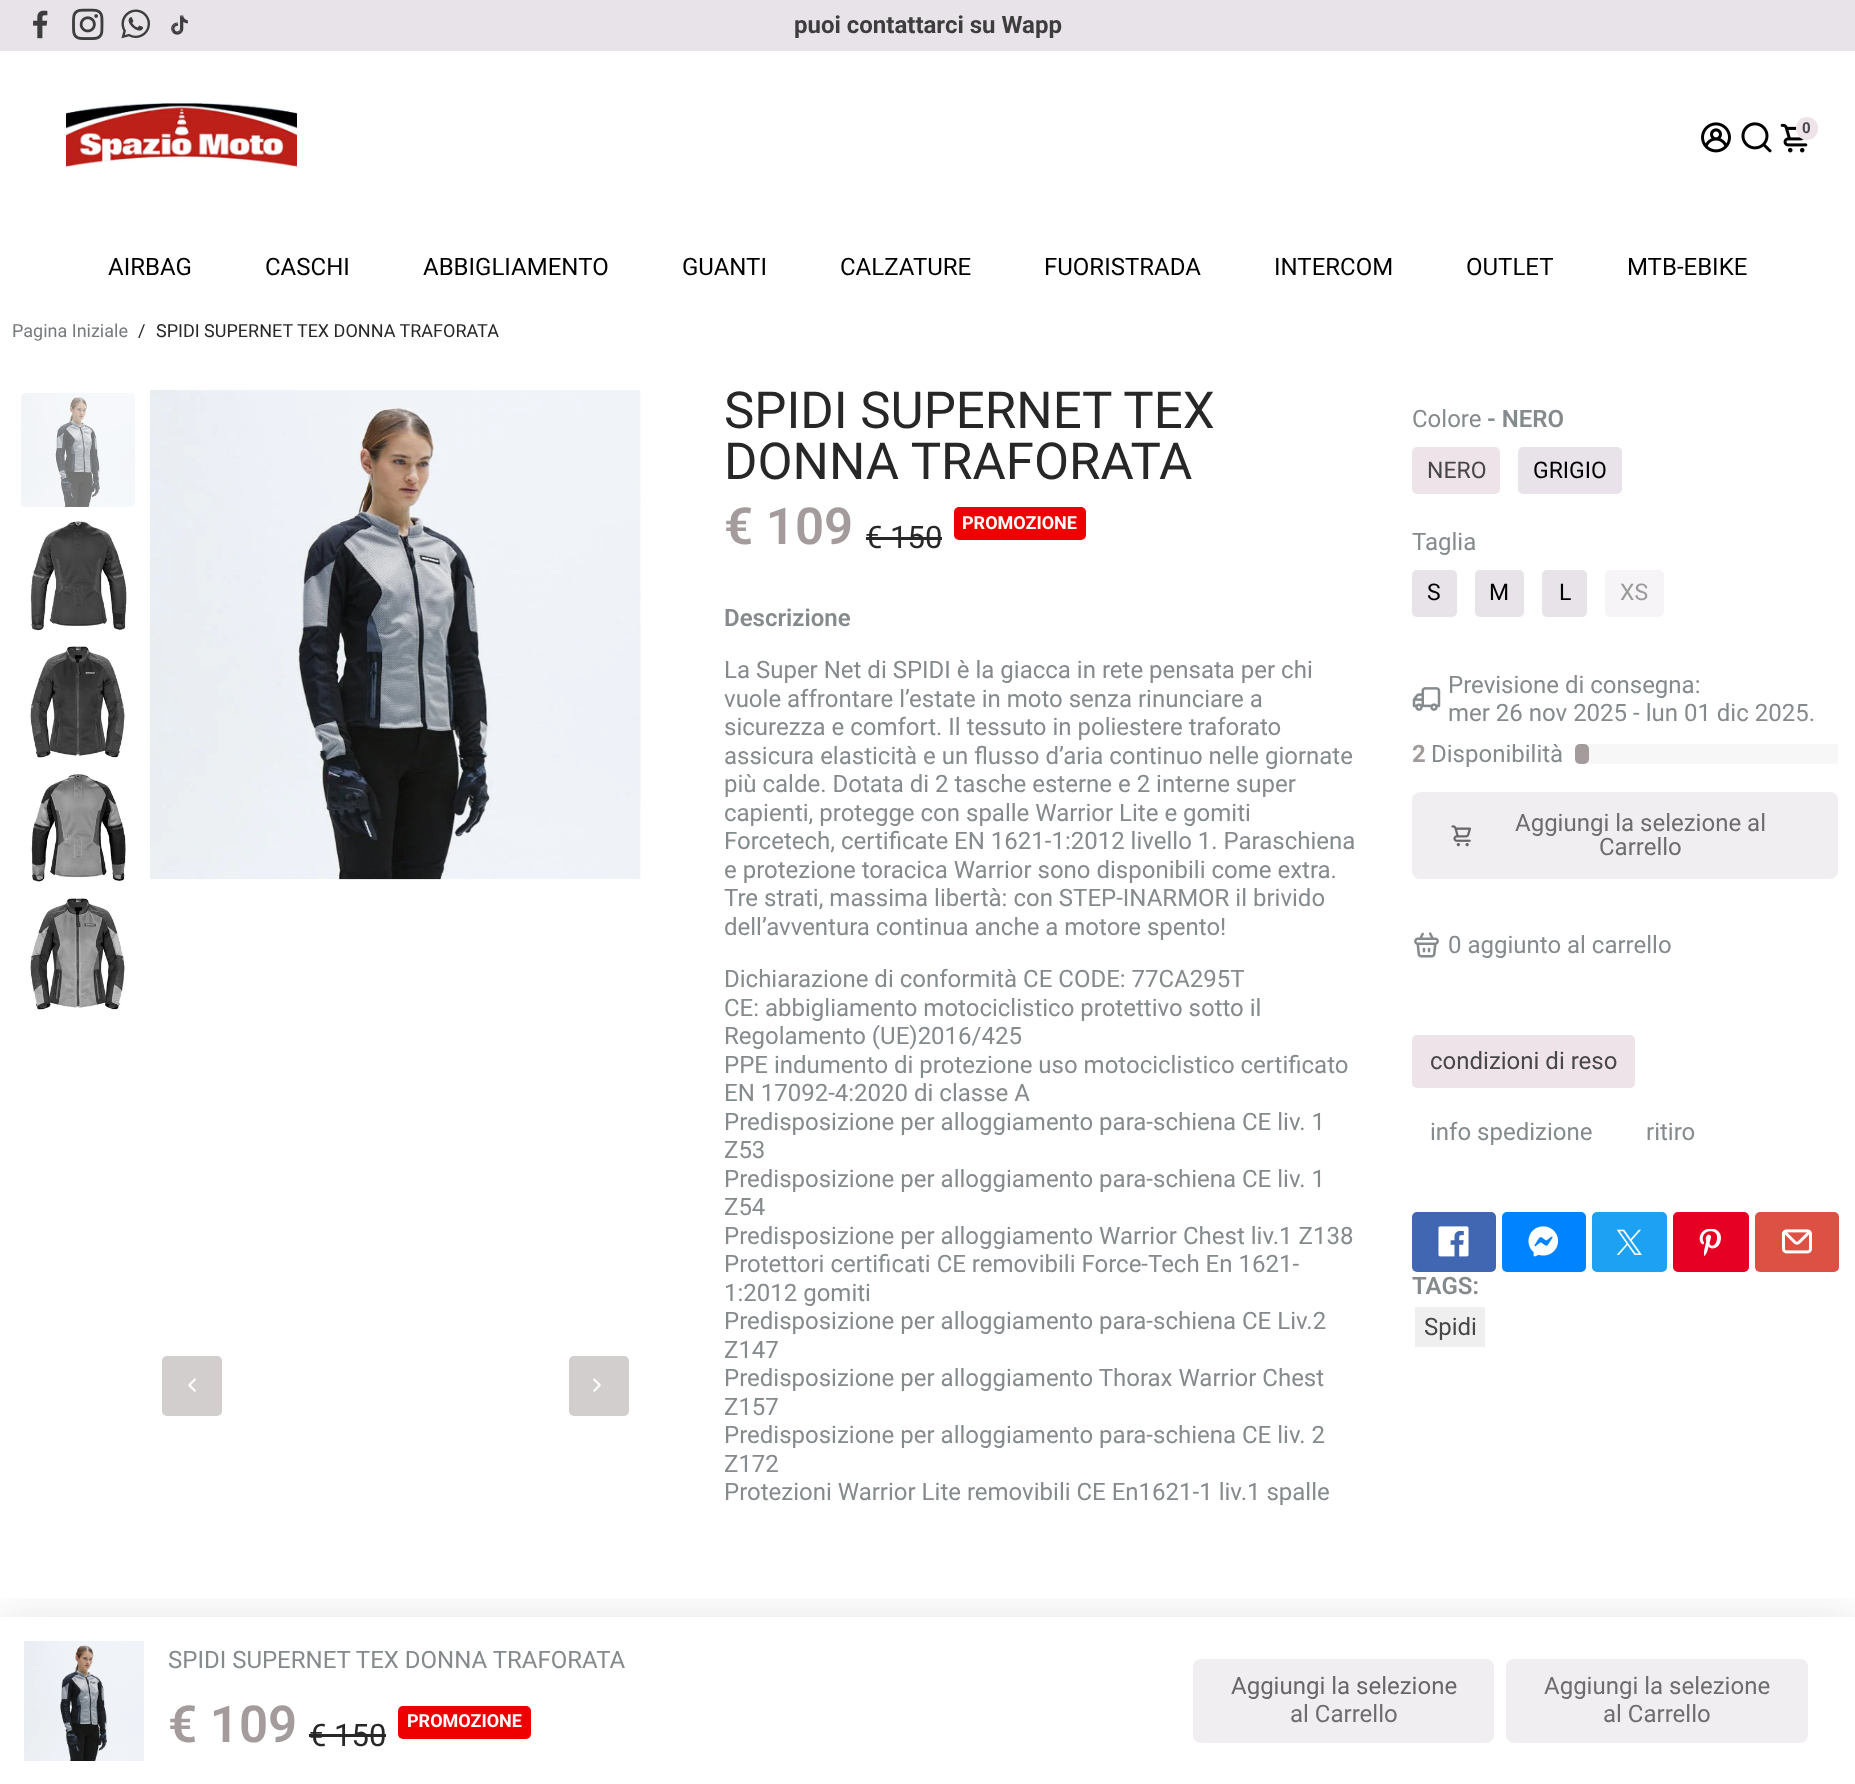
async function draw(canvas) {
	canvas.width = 1855;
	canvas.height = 1784;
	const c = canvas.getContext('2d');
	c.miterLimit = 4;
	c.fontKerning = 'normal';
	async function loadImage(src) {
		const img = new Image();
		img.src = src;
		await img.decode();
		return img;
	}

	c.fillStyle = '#fff';
	c.fillRect(0, 0, 1855, 1784);
	c.fillStyle = '#e8e3e9';
	c.fillRect(0, 0, 1855, 51);
	c.drawImage(await loadImage('img1.png'), 33, 10, 15, 29);
	c.drawImage(await loadImage('img2.png'), 72, 8, 32, 32);
	c.drawImage(await loadImage('img3.png'), 121, 9, 29, 30);
	c.drawImage(await loadImage('img4.png'), 171, 15, 17, 20);
	c.font = 'bold 24px Roboto';
	c.fillStyle = '#3d3d3d';
	c.fillText('puoi contattarci su Wapp', 794, 33);
	c.drawImage(await loadImage('img5.png'), 66, 101, 231, 67);
	c.drawImage(await loadImage('img6.png'), 1701, 122, 30, 31);
	c.drawImage(await loadImage('img7.png'), 1741, 122, 31, 31);
	c.drawImage(await loadImage('img8.png'), 1780, 123, 28, 30);
	c.fillStyle = '#ede3e9';
	c.beginPath();
	c.roundRect(1796, 117, 22, 23, 11);
	c.fill();
	c.font = 'bold 15px Roboto';
	c.fillStyle = '#484647';
	c.fillText('0', 1802, 133);
	c.font = '24px Roboto';
	c.fillStyle = '#000';
	for (const [text, x, y] of [
		['AIRBAG', 108, 275],
		['CASCHI', 265, 275],
		['ABBIGLIAMENTO', 423, 275],
		['GUANTI', 682, 275],
		['CALZATURE', 840, 275],
		['FUORISTRADA', 1044, 275],
		['INTERCOM', 1274, 275],
		['OUTLET', 1466, 275],
		['MTB-EBIKE', 1627, 275],
	]) {
		c.fillText(text, x, y);
	}
	c.font = '18px Roboto';
	c.fillStyle = '#76797d';
	c.fillText('Pagina Iniziale', 12, 337);
	c.fillStyle = '#272727';
	c.fillText('/', 138, 337);
	c.fillText('SPIDI SUPERNET TEX DONNA TRAFORATA', 156, 337);
	c.drawImage(await loadImage('img9.png'), 21, 393, 114, 114);
	c.drawImage(await loadImage('img10.png'), 30, 521, 97, 110);
	c.drawImage(await loadImage('img11.png'), 30, 646, 96, 113);
	c.drawImage(await loadImage('img12.png'), 30, 773, 96, 110);
	c.drawImage(await loadImage('img13.png'), 30, 898, 96, 112);
	c.drawImage(await loadImage('img14.png'), 150, 390, 491, 490);
	c.fillStyle = '#fbfbfd';
	c.fillRect(640, 718, 1, 2);
	c.fillStyle = '#d2cece';
	c.beginPath();
	c.roundRect(162, 1356, 60, 60, 5);
	c.fill();
	c.drawImage(await loadImage('img15.png'), 188, 1378, 8, 14);
	c.beginPath();
	c.roundRect(569, 1356, 60, 60, 5);
	c.fill();
	c.drawImage(await loadImage('img16.png'), 593, 1378, 8, 14);
	c.font = '51px Roboto';
	c.fillStyle = '#272727';
	c.fillText('SPIDI SUPERNET TEX', 724, 428);
	c.fillText('DONNA TRAFORATA', 724, 479);
	c.font = '600 51px Roboto';
	c.fillStyle = '#a49c9c';
	c.fillText('€ 109', 724, 544);
	c.fillStyle = '#ef0000';
	c.beginPath();
	c.roundRect(954, 507, 132, 33, 5);
	c.fill();
	c.font = 'bold 18px Roboto';
	c.fillStyle = '#fff';
	c.fillText('PROMOZIONE', 962, 529);
	c.font = '31px Roboto';
	c.fillStyle = '#272727';
	c.fillText('€ 150', 865, 548);
	c.fillRect(866, 537, 76, 3);
	c.font = '600 24px Roboto';
	c.fillStyle = '#858a8d';
	c.fillText('Descrizione', 724, 626);
	c.font = '24px Roboto';
	for (const [text, x, y] of [
		['La Super Net di SPIDI è la giacca in rete pensata per chi', 724, 678],
		['vuole affrontare l’estate in moto senza rinunciare a', 724, 707],
		['sicurezza e comfort. Il tessuto in poliestere traforato', 724, 735],
		['assicura elasticità e un flusso d’aria continuo nelle giornate', 724, 764],
		['più calde. Dotata di 2 tasche esterne e 2 interne super', 724, 792],
		['capienti, protegge con spalle Warrior Lite e gomiti', 724, 821],
		['Forcetech, certificate EN 1621-1:2012 livello 1. Paraschiena', 724, 849],
		['e protezione toracica Warrior sono disponibili come extra.', 724, 878],
		['Tre strati, massima libertà: con STEP-INARMOR il brivido', 724, 906],
		['dell’avventura continua anche a motore spento!', 724, 935],
		['Dichiarazione di conformità CE CODE: 77CA295T', 724, 987],
		['CE: abbigliamento motociclistico protettivo sotto il', 724, 1016],
		['Regolamento (UE)2016/425', 724, 1044],
		['PPE indumento di protezione uso motociclistico certificato', 724, 1073],
		['EN 17092-4:2020 di classe A', 724, 1101],
		['Predisposizione per alloggiamento para-schiena CE liv. 1', 724, 1130],
		['Z53', 724, 1158],
		['Predisposizione per alloggiamento para-schiena CE liv. 1', 724, 1187],
		['Z54', 724, 1215],
		['Predisposizione per alloggiamento Warrior Chest liv.1 Z138', 724, 1244],
		['Protettori certificati CE removibili Force-Tech En 1621-', 724, 1272],
		['1:2012 gomiti', 724, 1301],
		['Predisposizione per alloggiamento para-schiena CE Liv.2', 724, 1329],
		['Z147', 724, 1358],
		['Predisposizione per alloggiamento Thorax Warrior Chest', 724, 1386],
		['Z157', 724, 1415],
		['Predisposizione per alloggiamento para-schiena CE liv. 2', 724, 1443],
		['Z172', 724, 1472],
		['Protezioni Warrior Lite removibili CE En1621-1 liv.1 spalle', 724, 1500],
		['Colore', 1412, 427],
	]) {
		c.fillText(text, x, y);
	}
	c.font = '600 24px Roboto';
	c.fillText('- NERO', 1487, 427);
	c.fillStyle = '#ede3e9';
	c.beginPath();
	c.roundRect(1413.5, 448.5, 85, 44, 3.5);
	c.fill();
	c.strokeStyle = '#ede3e9';
	c.lineWidth = 3;
	c.stroke();
	c.font = '23px Roboto';
	c.fillStyle = '#484647';
	c.fillText('NERO', 1427, 478);
	c.fillStyle = '#e8e3e9';
	c.beginPath();
	c.roundRect(1518, 447, 104, 47, 5);
	c.fill();
	c.fillStyle = '#000';
	c.fillText('GRIGIO', 1533, 478);
	c.font = '24px Roboto';
	c.fillStyle = '#858a8d';
	c.fillText('Taglia', 1412, 550);
	c.fillStyle = '#e8e3e9';
	c.beginPath();
	c.roundRect(1412, 570, 45, 47, 5);
	c.fill();
	c.font = '23px Roboto';
	c.fillStyle = '#000';
	c.fillText('S', 1427, 600);
	c.fillStyle = '#e8e3e9';
	c.beginPath();
	c.roundRect(1475, 570, 49, 47, 5);
	c.fill();
	c.fillStyle = '#000';
	c.fillText('M', 1489, 600);
	c.fillStyle = '#e8e3e9';
	c.beginPath();
	c.roundRect(1542, 570, 45, 47, 5);
	c.fill();
	c.fillStyle = '#000';
	c.fillText('L', 1559, 600);
	c.fillStyle = '#f6f4f6';
	c.beginPath();
	c.roundRect(1605, 570, 59, 47, 5);
	c.fill();
	c.fillStyle = '#999';
	c.fillText('XS', 1620, 600);
	c.drawImage(await loadImage('img17.png'), 1412, 687, 29, 24);
	c.font = '24px Roboto';
	c.fillStyle = '#858a8d';
	c.fillText('Previsione di consegna:', 1448, 693);
	c.fillText('mer 26 nov 2025 - lun 01 dic 2025.', 1448, 721);
	c.font = 'bold 24px Roboto';
	c.fillStyle = '#a49c9c';
	c.fillText('2', 1412, 762);
	c.font = '24px Roboto';
	c.fillStyle = '#858a8d';
	c.fillText('Disponibilità', 1431, 762);
	c.fillStyle = '#f7f7f7';
	c.fillRect(1575, 744, 263, 20);
	c.fillStyle = '#a49c9c';
	c.beginPath();
	c.roundRect(1575, 744, 14, 20, 5);
	c.fill();
	c.fillStyle = '#f1eef2';
	c.beginPath();
	c.roundRect(1412, 792, 426, 87, 8);
	c.fill();
	c.drawImage(await loadImage('img18.png'), 1451, 825, 20, 22);
	c.fillStyle = '#6d6d6d';
	c.fillText('Aggiungi la selezione al', 1515, 831);
	c.fillText('Carrello', 1599, 855);
	c.drawImage(await loadImage('img19.png'), 1414, 932, 25, 26);
	c.fillStyle = '#858a8d';
	c.fillText('0 aggiunto al carrello', 1448, 953);
	c.fillStyle = '#ede3e9';
	c.beginPath();
	c.roundRect(1412, 1035, 223, 53, 5);
	c.fill();
	c.fillStyle = '#484647';
	c.fillText('condizioni di reso', 1430, 1069);
	c.fillStyle = '#858a8d';
	c.fillText('info spedizione', 1430, 1140);
	c.fillText('ritiro', 1646, 1140);
	c.fillStyle = '#4267b2';
	c.beginPath();
	c.roundRect(1412, 1212, 84, 60, 5);
	c.fill();
	c.drawImage(await loadImage('img20.png'), 1438, 1226, 31, 31);
	c.fillStyle = '#0083ff';
	c.beginPath();
	c.roundRect(1502, 1212, 84, 60, 5);
	c.fill();
	c.drawImage(await loadImage('img21.png'), 1528, 1226, 31, 31);
	c.fillStyle = '#1da1f2';
	c.beginPath();
	c.roundRect(1592, 1212, 75, 60, 5);
	c.fill();
	c.drawImage(await loadImage('img22.png'), 1616, 1229, 26, 26);
	c.fillStyle = '#e60023';
	c.beginPath();
	c.roundRect(1673, 1212, 76, 60, 5);
	c.fill();
	c.drawImage(await loadImage('img23.png'), 1699, 1229, 22, 27);
	c.fillStyle = '#dd5044';
	c.beginPath();
	c.roundRect(1755, 1212, 84, 60, 5);
	c.fill();
	c.drawImage(await loadImage('img24.png'), 1782, 1229, 30, 25);
	c.font = '600 24px Roboto';
	c.fillStyle = '#858a8d';
	c.fillText('TAGS:', 1412, 1294);
	c.fillStyle = '#efefef';
	c.fillRect(1415, 1307, 70, 40);
	c.font = '24px Roboto';
	c.fillStyle = '#484647';
	c.fillText('Spidi', 1424, 1335);
	c.save();
	c.beginPath();
	c.rect(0, 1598, 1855, 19);
	c.clip();
	c.fillStyle = '#0000001a';
	c.filter = 'blur(22.5px)';
	c.beginPath();
	c.rect(0, 1617, 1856, 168);
	c.fill();
	c.filter = 'none';
	c.restore();
	c.drawImage(await loadImage('img25.png'), 24, 1641, 120, 120);
	c.fillStyle = '#858a8d';
	c.fillText('SPIDI SUPERNET TEX DONNA TRAFORATA', 168, 1668);
	c.font = '600 51px Roboto';
	c.fillStyle = '#a49c9c';
	c.fillText('€ 109', 168, 1742);
	c.fillStyle = '#ef0000';
	c.beginPath();
	c.roundRect(398, 1706, 133, 33, 5);
	c.fill();
	c.font = 'bold 18px Roboto';
	c.fillStyle = '#fff';
	c.fillText('PROMOZIONE', 407, 1727);
	c.font = '31px Roboto';
	c.fillStyle = '#272727';
	c.fillText('€ 150', 309, 1746);
	c.fillRect(309, 1734, 77, 3);
	c.fillStyle = '#e8e3e999';
	c.beginPath();
	c.roundRect(1193, 1659, 301, 84, 8);
	c.fill();
	c.font = '24px Roboto';
	c.fillStyle = '#686667';
	c.fillText('Aggiungi la selezione', 1231, 1694);
	c.fillStyle = '#6d6d6d';
	c.fillText('al Carrello', 1290, 1722);
	c.fillStyle = '#f1eef2';
	c.beginPath();
	c.roundRect(1506, 1659, 302, 84, 8);
	c.fill();
	c.fillStyle = '#6d6d6d';
	c.fillText('Aggiungi la selezione', 1544, 1694);
	c.fillText('al Carrello', 1603, 1722);
}

draw(document.querySelector('canvas'));
